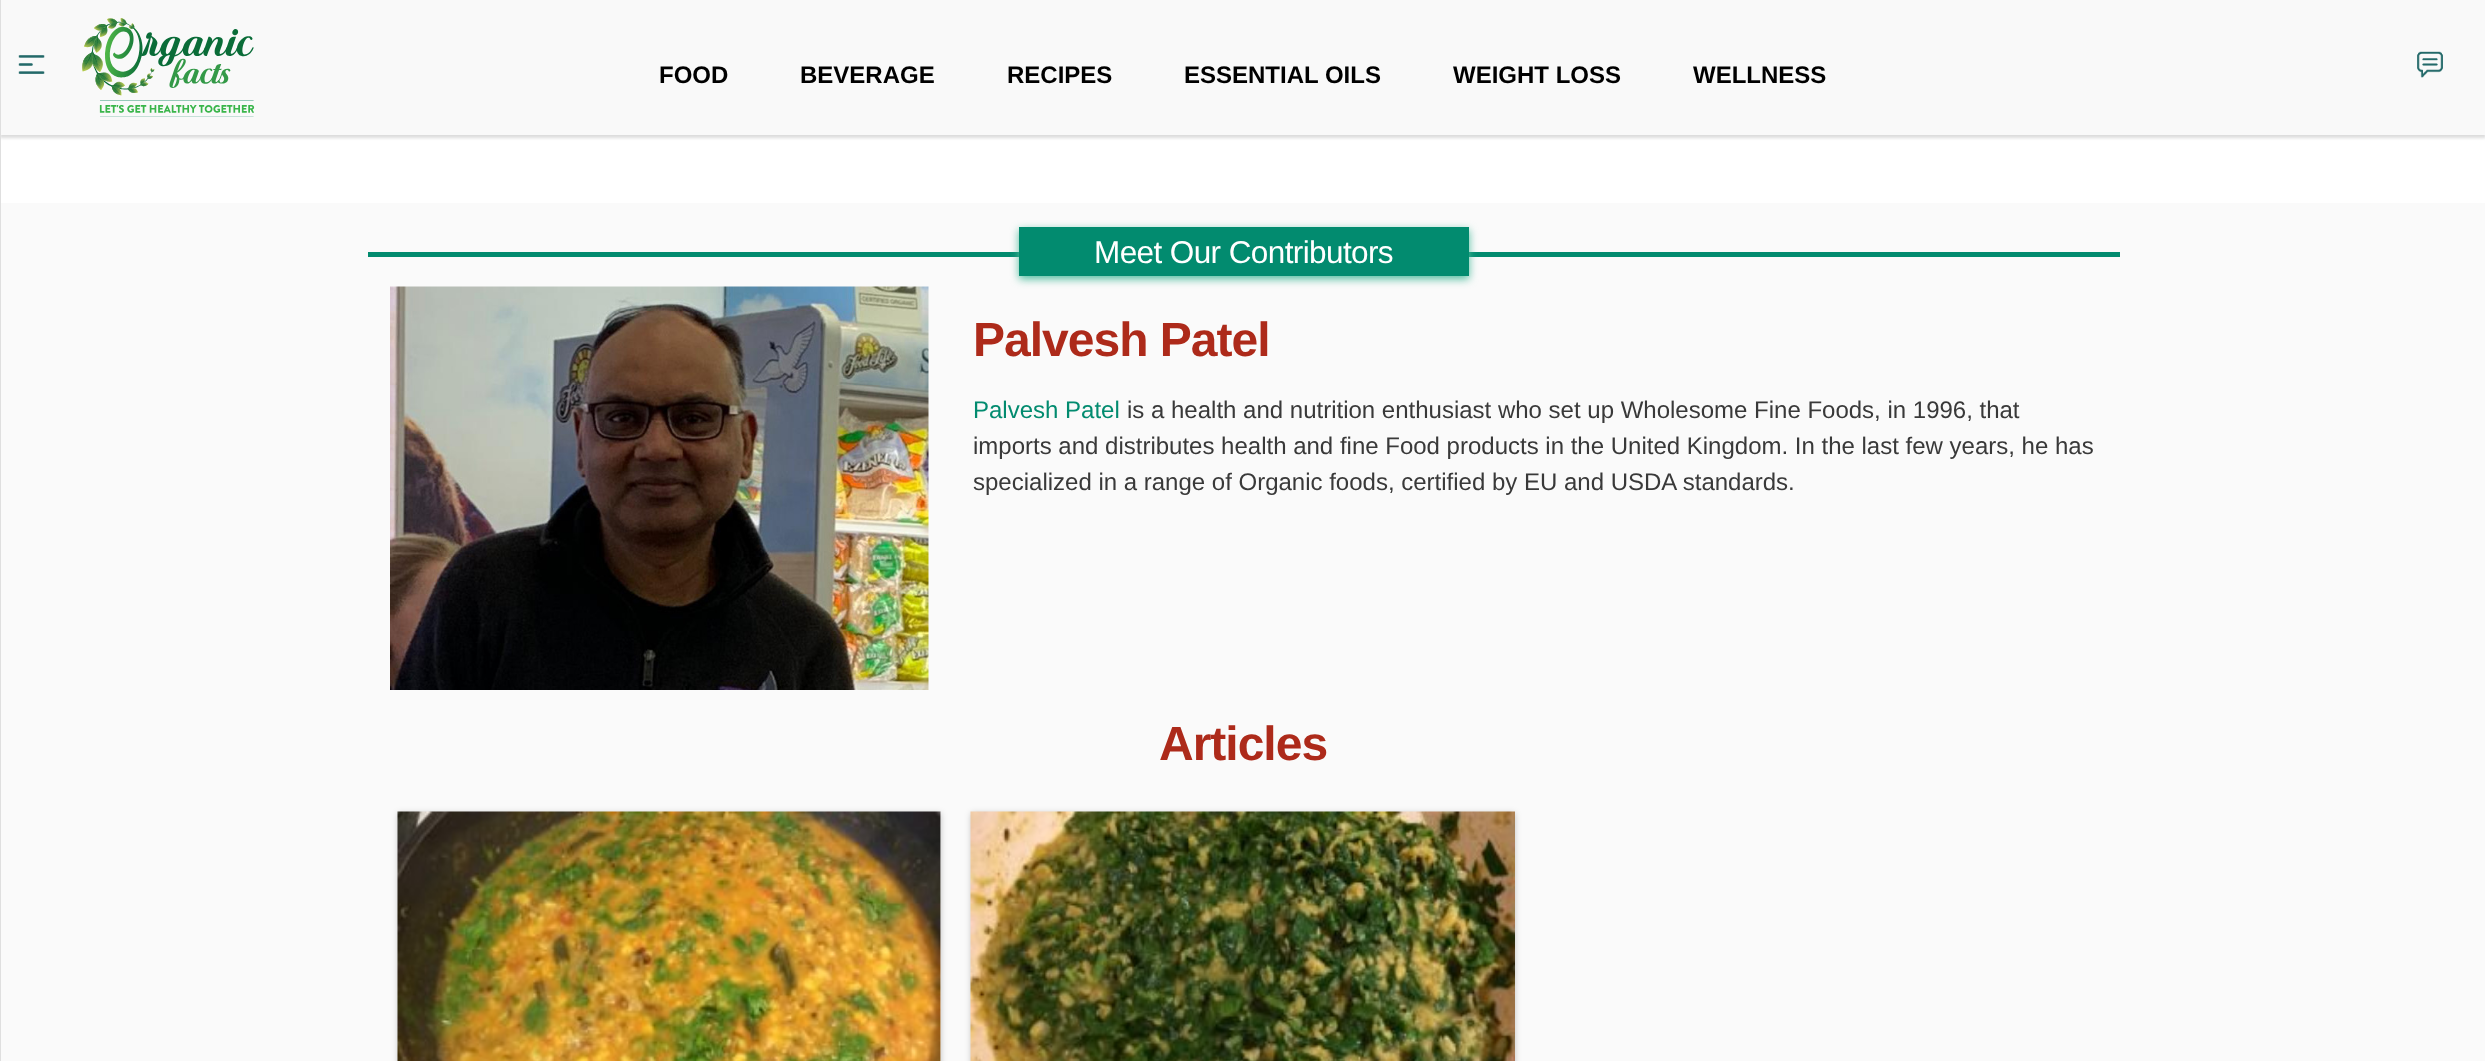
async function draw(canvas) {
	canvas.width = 2485;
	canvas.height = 1061;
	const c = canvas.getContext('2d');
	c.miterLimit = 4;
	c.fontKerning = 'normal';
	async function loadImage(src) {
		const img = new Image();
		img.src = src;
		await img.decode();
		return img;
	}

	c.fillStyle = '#fff';
	c.fillRect(0, 0, 2485, 1061);
	c.fillStyle = '#fafafa';
	c.fillRect(1, 203, 2484, 858);
	c.fillStyle = '#51515133';
	c.filter = 'blur(1.5px)';
	c.beginPath();
	c.rect(0, 3, 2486, 135);
	c.fill();
	c.filter = 'none';
	c.fillStyle = '#dfdfdf';
	c.fillRect(0, 0, 1, 1061);
	c.fillStyle = '#f9f9f9';
	c.fillRect(1, 0, 2484, 135);
	c.drawImage(await loadImage('img1.png'), 18, 55, 27, 19);
	c.drawImage(await loadImage('img2.png'), 82, 18, 173, 99);
	c.drawImage(await loadImage('img3.png'), 2417, 51, 26, 27);
	c.font = 'bold 24px Liberation Sans';
	c.fillStyle = '#000';
	for (const [text, x, y] of [
		['FOOD', 659, 83],
		['BEVERAGE', 800, 83],
		['RECIPES', 1007, 83],
		['ESSENTIAL OILS', 1184, 83],
		['WEIGHT LOSS', 1453, 83],
		['WELLNESS', 1693, 83],
	]) {
		c.fillText(text, x, y);
	}
	c.fillStyle = '#028b6f';
	c.fillRect(368, 252, 1752, 5);
	c.fillStyle = '#4ebc9d';
	c.filter = 'blur(4px)';
	c.beginPath();
	c.rect(1019, 230, 450, 49);
	c.fill();
	c.filter = 'none';
	c.fillStyle = '#028b6f';
	c.fillRect(1019, 227, 450, 49);
	c.letterSpacing = '-0.6px';
	c.font = '31.5px Liberation Sans';
	c.fillStyle = '#fff';
	c.fillText('Meet Our Contributors', 1094, 263);
	c.drawImage(await loadImage('img4.png'), 390, 286, 539, 404);
	c.letterSpacing = '-1px';
	c.font = 'bold 48px Liberation Sans';
	c.fillStyle = '#ad2a1a';
	c.fillText('Palvesh Patel', 973, 356);
	c.letterSpacing = '0px';
	c.font = '24px Liberation Sans';
	c.fillStyle = '#028b6f';
	c.fillText('Palvesh Patel', 973, 418);
	c.fillStyle = '#393939';
	for (const [text, x, y] of [
		['is a health and nutrition enthusiast who set up Wholesome Fine Foods, in 1996, that', 1127, 418],
		['imports and distributes health and fine Food products in the United Kingdom. In the last few years, he has', 973, 454],
		['specialized in a range of Organic foods, certified by EU and USDA standards.', 973, 490],
	]) {
		c.fillText(text, x, y);
	}
	c.letterSpacing = '-1px';
	c.font = 'bold 48px Liberation Sans';
	c.fillStyle = '#ad2a1a';
	c.fillText('Articles', 1159, 760);
	c.fillStyle = '#00000036';
	c.filter = 'blur(3px)';
	c.beginPath();
	c.rect(398, 813, 543, 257);
	c.fill();
	c.filter = 'none';
	c.fillStyle = '#fafafa';
	c.fillRect(940, 812, 1, 249);
	c.drawImage(await loadImage('img5.png'), 397, 811, 544, 250);
	c.fillStyle = '#00000036';
	c.filter = 'blur(3px)';
	c.beginPath();
	c.rect(971, 813, 544, 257);
	c.fill();
	c.filter = 'none';
	c.drawImage(await loadImage('img6.png'), 970, 811, 545, 250);
}

draw(document.querySelector('canvas'));
